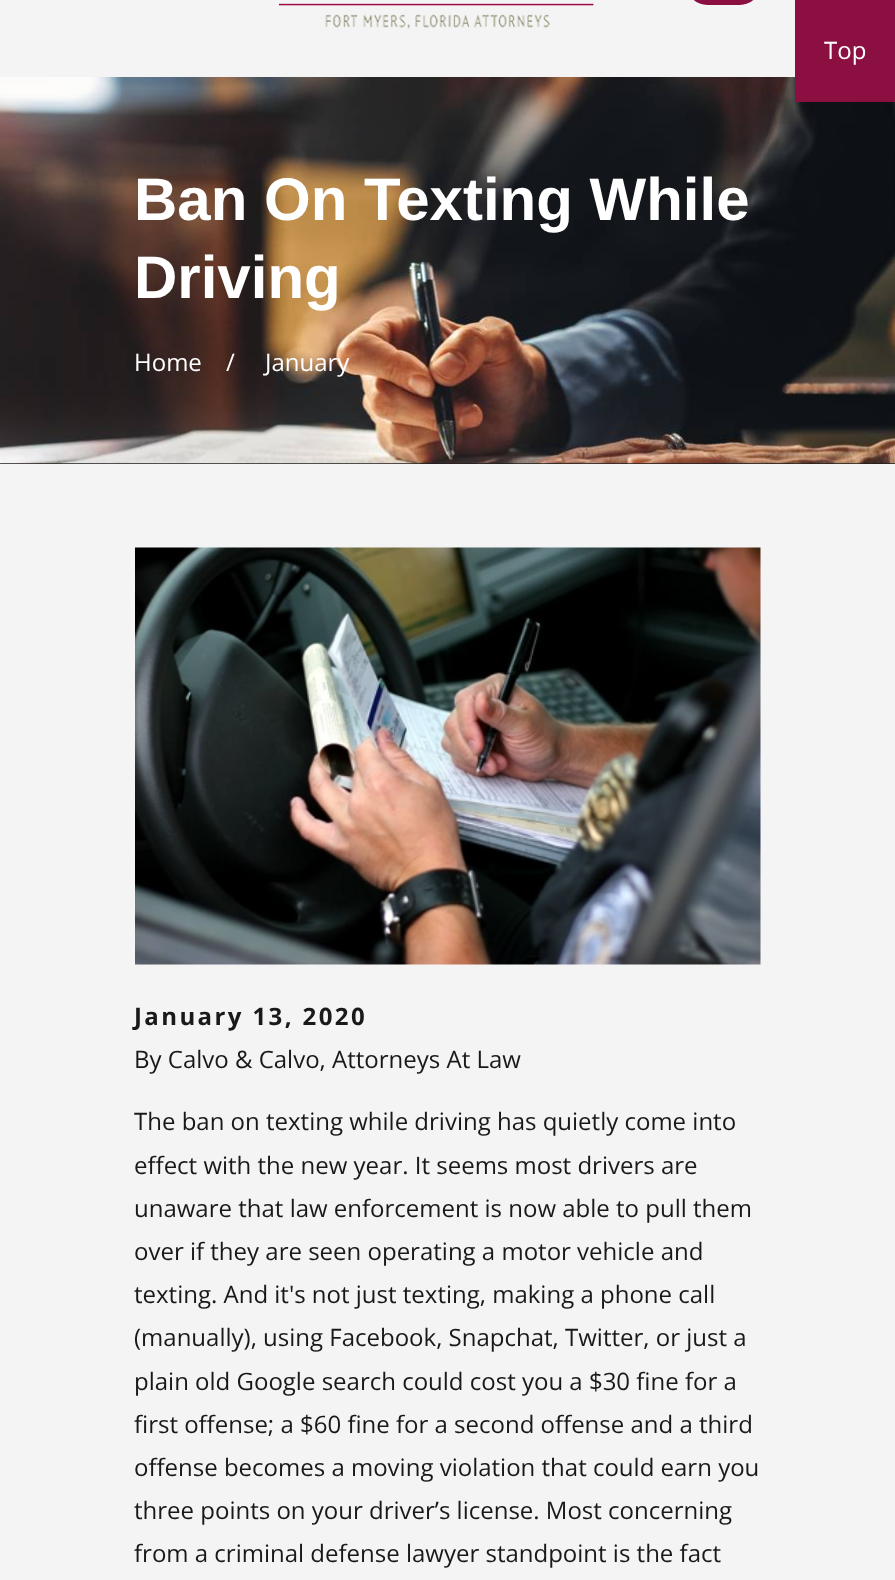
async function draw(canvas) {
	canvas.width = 895;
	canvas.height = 1580;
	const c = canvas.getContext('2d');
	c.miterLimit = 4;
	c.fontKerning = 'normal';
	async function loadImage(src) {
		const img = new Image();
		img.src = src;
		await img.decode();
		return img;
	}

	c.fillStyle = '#f4f4f4';
	c.fillRect(0, 0, 895, 1580);
	c.fillStyle = '#8b1041';
	c.beginPath();
	c.roundRect(686, -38, 75, 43, 37.5);
	c.fill();
	c.drawImage(await loadImage('img1.png'), 279, 3, 315, 26);
	c.fillStyle = '#1f1f1f';
	c.fillRect(0, 463, 895, 1);
	c.drawImage(await loadImage('img2.png'), 0, 77, 895, 387);
	c.fillStyle = '#8b1041';
	c.fillRect(795, 0, 100, 102);
	c.font = '24px Open Sans';
	c.fillStyle = '#fff';
	c.fillText('Top', 824, 59);
	c.font = 'bold 60px Liberation Sans';
	c.fillText('Ban On Texting While', 134, 220);
	c.fillText('Driving', 134, 298);
	c.font = '24px Open Sans';
	for (const [text, x, y] of [
		['Home', 134, 371],
		['/', 226, 371],
		['January', 265, 371],
	]) {
		c.fillText(text, x, y);
	}
	c.drawImage(await loadImage('img3.png'), 135, 547, 626, 418);
	c.letterSpacing = '2.4px';
	c.font = 'bold 24px Open Sans';
	c.fillStyle = '#191919';
	c.fillText('January 13, 2020', 134, 1025);
	c.letterSpacing = '0px';
	c.font = '24px Open Sans';
	for (const [text, x, y] of [
		['By Calvo & Calvo, Attorneys At Law', 134, 1068],
		['The ban on texting while driving has quietly come into', 134, 1130],
		['effect with the new year. It seems most drivers are', 134, 1174],
		['unaware that law enforcement is now able to pull them', 134, 1217],
		['over if they are seen operating a motor vehicle and', 134, 1260],
		['texting. And it\'s not just texting, making a phone call', 134, 1303],
		['(manually), using Facebook, Snapchat, Twitter, or just a', 134, 1346],
		['plain old Google search could cost you a $30 fine for a', 134, 1390],
		['first offense; a $60 fine for a second offense and a third', 134, 1433],
		['offense becomes a moving violation that could earn you', 134, 1476],
		['three points on your driver’s license. Most concerning', 134, 1519],
		['from a criminal defense lawyer standpoint is the fact', 134, 1562],
	]) {
		c.fillText(text, x, y);
	}
}

draw(document.querySelector('canvas'));
